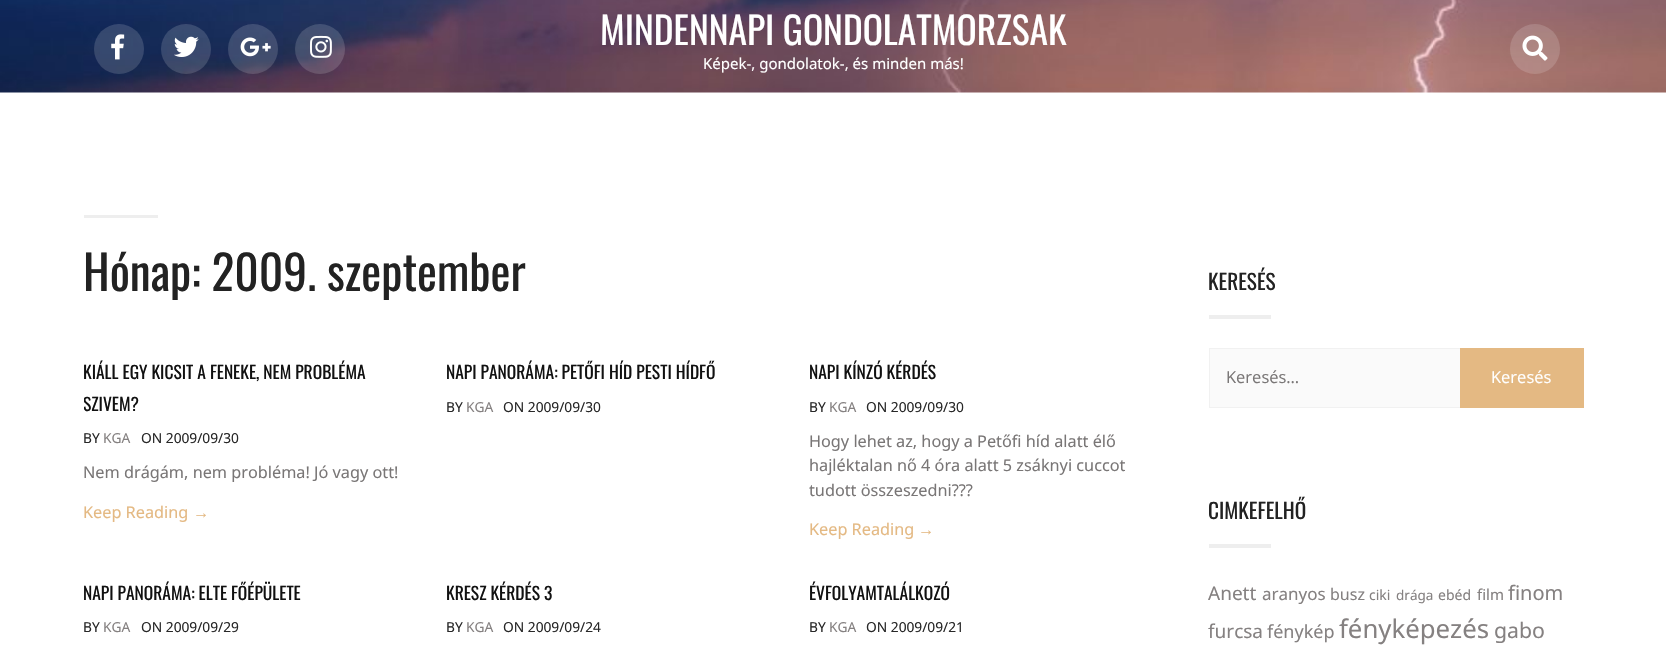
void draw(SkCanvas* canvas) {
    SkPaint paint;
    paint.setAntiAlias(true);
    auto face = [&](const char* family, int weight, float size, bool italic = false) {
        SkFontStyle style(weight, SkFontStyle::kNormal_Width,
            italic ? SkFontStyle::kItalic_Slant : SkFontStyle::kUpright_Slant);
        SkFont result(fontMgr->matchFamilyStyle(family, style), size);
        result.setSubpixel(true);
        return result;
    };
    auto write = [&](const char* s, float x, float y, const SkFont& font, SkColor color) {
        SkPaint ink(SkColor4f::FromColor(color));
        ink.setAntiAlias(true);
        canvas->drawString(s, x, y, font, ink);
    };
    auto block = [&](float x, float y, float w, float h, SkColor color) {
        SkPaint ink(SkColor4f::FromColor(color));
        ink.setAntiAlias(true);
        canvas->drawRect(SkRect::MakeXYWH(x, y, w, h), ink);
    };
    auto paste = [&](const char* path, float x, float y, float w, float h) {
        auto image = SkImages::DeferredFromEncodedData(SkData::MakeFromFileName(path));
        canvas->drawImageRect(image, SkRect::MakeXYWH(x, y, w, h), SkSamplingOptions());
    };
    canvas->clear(SK_ColorWHITE);
    paste("pic1.png", 0, 0, 1666, 93);
    paint.setColor(SkColorSetARGB(38, 255, 255, 255));
    canvas->drawCircle(119, 49, 25, paint);
    paste("pic2.png", 111, 34, 14, 26);
    canvas->drawCircle(186, 49, 25, paint);
    paste("pic3.png", 174, 36, 25, 21);
    canvas->drawCircle(253, 49, 25, paint);
    paste("pic4.png", 240, 37, 31, 20);
    canvas->drawCircle(320, 49, 25, paint);
    paste("pic5.png", 310, 35, 22, 23);
    canvas->save();
    canvas->clipRect(SkRect::MakeXYWH(84, 13, 1500, 67));
    auto kFont1 = face("Oswald", 400, 37.5f);
    write("MINDENNAPI GONDOLATMORZSÁK", 600, 45, kFont1, SK_ColorWHITE);
    canvas->restore();
    auto kFont2 = face("Noto Sans", 400, 15);
    write("Képek-, gondolatok-, és minden más!", 703, 69, kFont2, SK_ColorWHITE);
    canvas->drawCircle(1535, 49, 25, paint);
    paste("pic6.png", 1522, 35, 26, 26);
    block(84, 215, 74, 3, SkColorSetRGB(238, 238, 238));
    auto kFont3 = face("Oswald", 400, 47.5f);
    write("Hónap: 2009. szeptember", 83, 291, kFont3, SkColorSetRGB(34, 34, 34));
    auto kFont4 = face("Oswald", 400, 17.5f);
    write("KIÁLL EGY KICSIT A FENEKE, NEM PROBLÉMA", 83, 379, kFont4, SkColorSetRGB(17, 17, 17));
    canvas->save();
    canvas->clipRect(SkRect::MakeXYWH(84, 205, 1500, 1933));
    write("SZIVEM?", 83, 411, kFont4, SkColorSetRGB(17, 17, 17));
    canvas->restore();
    auto kFont5 = face("Noto Sans", 400, 13.75f);
    write("BY", 83, 443, kFont5, SkColorSetRGB(40, 40, 40));
    write("KGA", 103, 443, kFont5, SkColorSetRGB(133, 129, 129));
    write("ON 2009/09/30", 141, 443, kFont5, SkColorSetRGB(40, 40, 40));
    auto kFont6 = face("Noto Sans", 400, 16.25f);
    write("Nem drágám, nem probléma! Jó vagy ott!", 83, 478, kFont6, SkColorSetRGB(121, 118, 118));
    write("Keep Reading", 83, 518, kFont6, SkColorSetRGB(228, 185, 131));
    auto kFont7 = face("Liberation Serif", 400, 16.25f);
    write("→", 193, 518, kFont7, SkColorSetRGB(228, 185, 131));
    write("NAPI PANORÁMA: PETŐFI HÍD PESTI HÍDFŐ", 446, 379, kFont4, SkColorSetRGB(17, 17, 17));
    write("BY", 446, 412, kFont5, SkColorSetRGB(40, 40, 40));
    write("KGA", 466, 412, kFont5, SkColorSetRGB(133, 129, 129));
    write("ON 2009/09/30", 503, 412, kFont5, SkColorSetRGB(40, 40, 40));
    write("NAPI KÍNZÓ KÉRDÉS", 809, 379, kFont4, SkColorSetRGB(17, 17, 17));
    write("BY", 809, 412, kFont5, SkColorSetRGB(40, 40, 40));
    write("KGA", 829, 412, kFont5, SkColorSetRGB(133, 129, 129));
    write("ON 2009/09/30", 866, 412, kFont5, SkColorSetRGB(40, 40, 40));
    write("Hogy lehet az, hogy a Petőfi híd alatt élő", 809, 447, kFont6, SkColorSetRGB(121, 118, 118));
    write("hajléktalan nő 4 óra alatt 5 zsáknyi cuccot", 809, 471, kFont6, SkColorSetRGB(121, 118, 118));
    write("tudott összeszedni?\077?", 809, 496, kFont6, SkColorSetRGB(121, 118, 118));
    write("Keep Reading", 809, 535, kFont6, SkColorSetRGB(228, 185, 131));
    write("→", 918, 535, kFont7, SkColorSetRGB(228, 185, 131));
    write("NAPI PANORÁMA: ELTE FŐÉPÜLETE", 83, 600, kFont4, SkColorSetRGB(17, 17, 17));
    write("BY", 83, 632, kFont5, SkColorSetRGB(40, 40, 40));
    write("KGA", 103, 632, kFont5, SkColorSetRGB(133, 129, 129));
    write("ON 2009/09/29", 141, 632, kFont5, SkColorSetRGB(40, 40, 40));
    write("KRESZ KÉRDÉS 3", 446, 600, kFont4, SkColorSetRGB(17, 17, 17));
    write("BY", 446, 632, kFont5, SkColorSetRGB(40, 40, 40));
    write("KGA", 466, 632, kFont5, SkColorSetRGB(133, 129, 129));
    write("ON 2009/09/24", 503, 632, kFont5, SkColorSetRGB(40, 40, 40));
    write("ÉVFOLYAMTALÁLKOZÓ", 809, 600, kFont4, SkColorSetRGB(17, 17, 17));
    write("BY", 809, 632, kFont5, SkColorSetRGB(40, 40, 40));
    write("KGA", 829, 632, kFont5, SkColorSetRGB(133, 129, 129));
    write("ON 2009/09/21", 866, 632, kFont5, SkColorSetRGB(40, 40, 40));
    auto kFont8 = face("Oswald", 400, 21.25f);
    write("KERESÉS", 1208, 290, kFont8, SkColorSetRGB(34, 34, 34));
    block(1209, 315, 62, 4, SkColorSetRGB(238, 238, 238));
    block(1210, 349, 250, 58, SkColorSetRGB(250, 250, 250));
    paint.setStyle(SkPaint::kStroke_Style);
    paint.setStrokeWidth(1);
    paint.setColor(SkColorSetRGB(241, 241, 241));
    canvas->drawRect(SkRect::MakeXYWH(1209.5f, 348.5f, 374, 59), paint);
    auto kFont9 = face("Open Sans", 400, 16.5f);
    write("Keresés…", 1226, 383, kFont9, SkColorSetRGB(121, 118, 118));
    block(1460, 348, 124, 60, SkColorSetRGB(228, 185, 131));
    write("Keresés", 1491, 383, kFont9, SK_ColorWHITE);
    write("CIMKEFELHŐ", 1208, 519, kFont8, SkColorSetRGB(34, 34, 34));
    block(1209, 544, 62, 4, SkColorSetRGB(238, 238, 238));
    auto kFont10 = face("Noto Sans", 400, 19);
    write("Anett", 1208, 600, kFont10, SkColorSetRGB(133, 129, 129));
    auto kFont11 = face("Noto Sans", 400, 17);
    write("aranyos", 1262, 600, kFont11, SkColorSetRGB(133, 129, 129));
    auto kFont12 = face("Noto Sans", 400, 16);
    write("busz", 1330, 600, kFont12, SkColorSetRGB(133, 129, 129));
    auto kFont13 = face("Noto Sans", 400, 14);
    write("ciki", 1369, 600, kFont13, SkColorSetRGB(133, 129, 129));
    auto kFont14 = face("Noto Sans", 400, 13.5f);
    write("drága", 1396, 600, kFont14, SkColorSetRGB(133, 129, 129));
    write("ebéd", 1438, 600, kFont13, SkColorSetRGB(133, 129, 129));
    write("film", 1477, 600, kFont2, SkColorSetRGB(133, 129, 129));
    auto kFont15 = face("Noto Sans", 400, 20);
    write("finom", 1508, 600, kFont15, SkColorSetRGB(133, 129, 129));
    write("furcsa", 1208, 638, kFont10, SkColorSetRGB(133, 129, 129));
    auto kFont16 = face("Noto Sans", 400, 18);
    write("fénykép", 1267, 638, kFont16, SkColorSetRGB(133, 129, 129));
    auto kFont17 = face("Noto Sans", 400, 25.75f);
    write("fényképezés", 1339, 638, kFont17, SkColorSetRGB(133, 129, 129));
    auto kFont18 = face("Noto Sans", 400, 21.25f);
    write("gabo", 1494, 638, kFont18, SkColorSetRGB(133, 129, 129));
}
